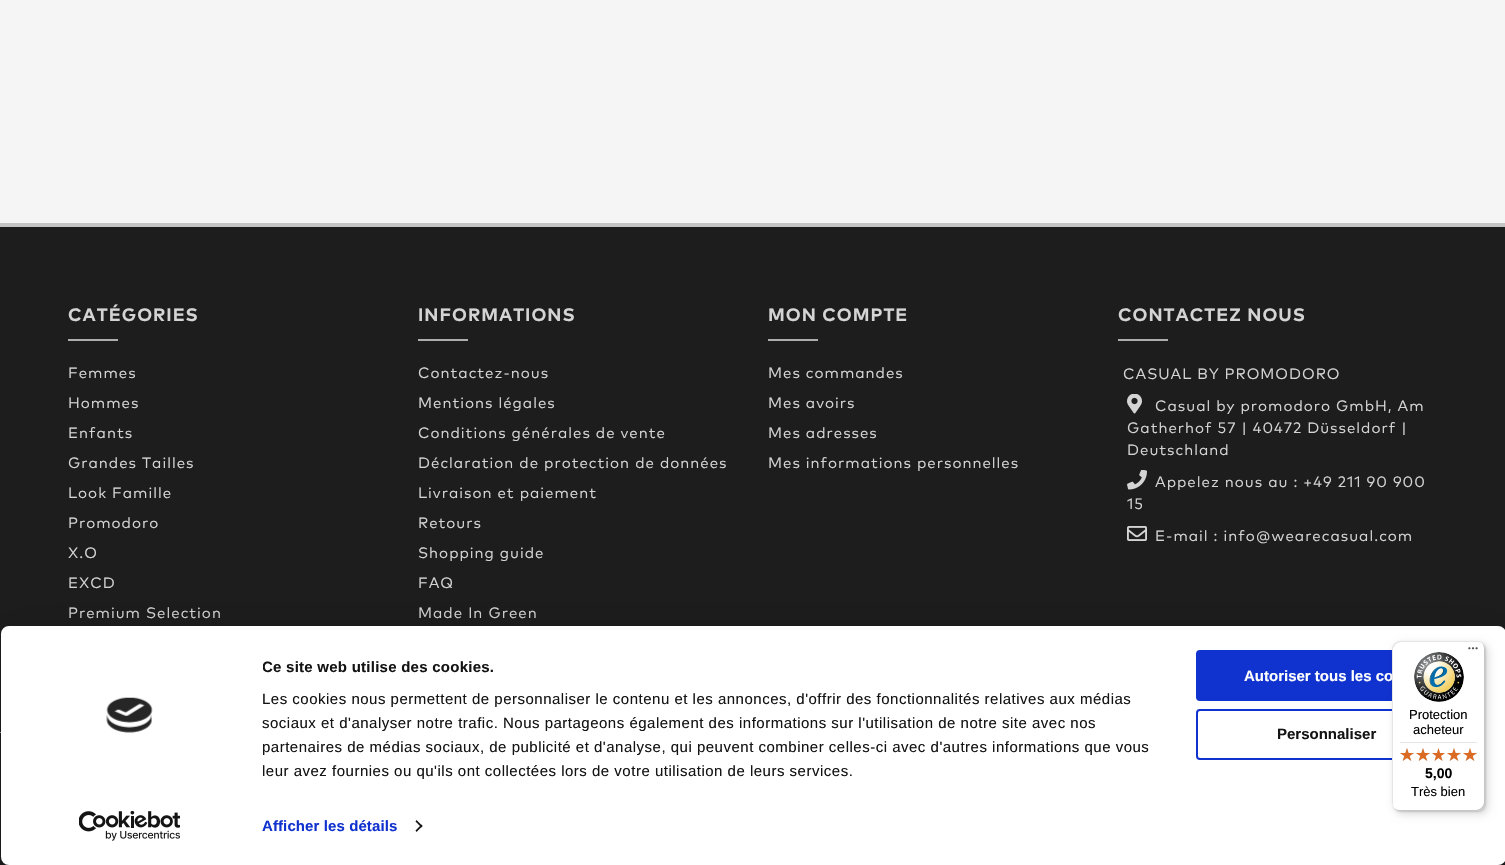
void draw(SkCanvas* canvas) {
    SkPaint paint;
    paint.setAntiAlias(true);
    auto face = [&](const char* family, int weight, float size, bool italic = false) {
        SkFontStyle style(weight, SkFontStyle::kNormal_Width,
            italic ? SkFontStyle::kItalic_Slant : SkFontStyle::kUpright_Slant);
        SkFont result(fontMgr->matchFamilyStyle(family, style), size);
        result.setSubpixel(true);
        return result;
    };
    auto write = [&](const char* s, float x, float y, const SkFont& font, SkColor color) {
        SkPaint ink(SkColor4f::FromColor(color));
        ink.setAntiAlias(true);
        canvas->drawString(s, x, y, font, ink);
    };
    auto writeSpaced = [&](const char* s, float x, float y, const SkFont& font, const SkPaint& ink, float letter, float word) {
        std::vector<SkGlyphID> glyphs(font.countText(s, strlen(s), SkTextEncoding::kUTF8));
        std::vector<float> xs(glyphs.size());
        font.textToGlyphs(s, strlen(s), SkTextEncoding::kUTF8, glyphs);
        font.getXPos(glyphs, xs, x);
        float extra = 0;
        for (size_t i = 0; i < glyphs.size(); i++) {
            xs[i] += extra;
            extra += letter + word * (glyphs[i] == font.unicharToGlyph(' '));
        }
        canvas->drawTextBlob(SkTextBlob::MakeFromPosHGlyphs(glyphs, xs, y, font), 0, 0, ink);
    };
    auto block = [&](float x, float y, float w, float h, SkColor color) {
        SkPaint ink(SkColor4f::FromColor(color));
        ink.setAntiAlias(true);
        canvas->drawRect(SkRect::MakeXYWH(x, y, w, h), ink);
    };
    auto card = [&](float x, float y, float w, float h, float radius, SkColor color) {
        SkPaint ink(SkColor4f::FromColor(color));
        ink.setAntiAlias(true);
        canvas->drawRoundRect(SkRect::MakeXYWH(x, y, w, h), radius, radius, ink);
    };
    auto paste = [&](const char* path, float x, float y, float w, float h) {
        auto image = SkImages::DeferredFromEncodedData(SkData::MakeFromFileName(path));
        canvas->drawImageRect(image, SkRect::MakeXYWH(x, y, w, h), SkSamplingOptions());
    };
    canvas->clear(SkColorSetRGB(29, 29, 29));
    block(0, 223, 1505, 4, SkColorSetRGB(196, 196, 196));
    block(0, 0, 1505, 223, SkColorSetRGB(245, 245, 245));
    auto kFont1 = face("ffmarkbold", 700, 18);
    paint.setColor(SkColorSetRGB(212, 212, 212));
    writeSpaced("CATÉGORIES", 68, 321, kFont1, paint, 1, 0);
    block(68, 339, 50, 2, SkColorSetRGB(174, 173, 173));
    auto kFont2 = face("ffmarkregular", 400, 15);
    writeSpaced("Femmes", 68, 378, kFont2, paint, 1, 0);
    writeSpaced("Hommes", 68, 408, kFont2, paint, 1, 0);
    writeSpaced("Enfants", 68, 438, kFont2, paint, 1, 0);
    writeSpaced("Grandes Tailles", 68, 468, kFont2, paint, 1, 0);
    writeSpaced("Look Famille", 68, 498, kFont2, paint, 1, 0);
    writeSpaced("Promodoro", 68, 528, kFont2, paint, 1, 0);
    writeSpaced("X.O", 68, 558, kFont2, paint, 1, 0);
    writeSpaced("EXCD", 68, 588, kFont2, paint, 1, 0);
    writeSpaced("Premium Selection", 68, 618, kFont2, paint, 1, 0);
    writeSpaced("INFORMATIONS", 418, 321, kFont1, paint, 1, 0);
    block(418, 339, 50, 2, SkColorSetRGB(174, 173, 173));
    writeSpaced("Contactez-nous", 418, 378, kFont2, paint, 1, 0);
    writeSpaced("Mentions légales", 418, 408, kFont2, paint, 1, 0);
    writeSpaced("Conditions générales de vente", 418, 438, kFont2, paint, 1, 0);
    writeSpaced("Déclaration de protection de données", 418, 468, kFont2, paint, 1, 0);
    writeSpaced("Livraison et paiement", 418, 498, kFont2, paint, 1, 0);
    writeSpaced("Retours", 418, 528, kFont2, paint, 1, 0);
    writeSpaced("Shopping guide", 418, 558, kFont2, paint, 1, 0);
    writeSpaced("FAQ", 418, 588, kFont2, paint, 1, 0);
    writeSpaced("Made In Green", 418, 618, kFont2, paint, 1, 0);
    writeSpaced("MON COMPTE", 768, 321, kFont1, paint, 1, 0);
    block(768, 339, 50, 2, SkColorSetRGB(174, 173, 173));
    writeSpaced("Mes commandes", 768, 378, kFont2, paint, 1, 0);
    writeSpaced("Mes avoirs", 768, 408, kFont2, paint, 1, 0);
    writeSpaced("Mes adresses", 768, 438, kFont2, paint, 1, 0);
    writeSpaced("Mes informations personnelles", 768, 468, kFont2, paint, 1, 0);
    writeSpaced("CONTACTEZ NOUS", 1118, 321, kFont1, paint, 1, 0);
    block(1118, 339, 50, 2, SkColorSetRGB(174, 173, 173));
    writeSpaced("CASUAL BY PROMODORO", 1123, 379, kFont2, paint, 1, 0);
    paste("pic1.png", 1127, 394, 15, 20);
    writeSpaced("Casual by promodoro GmbH, Am", 1155, 411, kFont2, paint, 1, 0);
    writeSpaced("Gatherhof 57 | 40472 Düsseldorf |", 1127, 433, kFont2, paint, 1, 0);
    writeSpaced("Deutschland", 1127, 455, kFont2, paint, 1, 0);
    paste("pic2.png", 1127, 470, 20, 20);
    writeSpaced("Appelez nous au : +49 211 90 900", 1155, 487, kFont2, paint, 1, 0);
    writeSpaced("15", 1127, 509, kFont2, paint, 1, 0);
    paste("pic3.png", 1127, 526, 20, 15);
    writeSpaced("E-mail : info@wearecasual.com", 1155, 541, kFont2, paint, 1, 0);
    block(0, 732, 1, 1, SkColorSetRGB(174, 173, 173));
    paint.setColor(SkColorSetARGB(77, 0, 0, 0));
    paint.setMaskFilter(SkMaskFilter::MakeBlur(kNormal_SkBlurStyle, 35));
    canvas->drawRoundRect(SkRect::MakeXYWH(1, 656, 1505, 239), 8, 8, paint);
    paint.setMaskFilter(nullptr);
    card(1, 626, 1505, 239, 8, SK_ColorWHITE);
    paste("pic4.png", 106, 697, 47, 36);
    paste("pic5.png", 79, 811, 101, 30);
    canvas->save();
    canvas->clipRect(SkRect::MakeXYWH(263, 656, 927, 127));
    auto kFont3 = face("Liberation Sans", 700, 15);
    paint.setColor(SkColorSetRGB(20, 20, 20));
    writeSpaced("Ce site web utilise des cookies.", 262, 672, kFont3, paint, 0.25f, 0);
    canvas->restore();
    auto kFont4 = face("Liberation Sans", 400, 15);
    writeSpaced("Les cookies nous permettent de personnaliser le contenu et les annonces, d'offrir des fonctionnalités relatives aux médias", 262, 704, kFont4, paint, 0.5f, 0);
    writeSpaced("sociaux et d'analyser notre trafic. Nous partageons également des informations sur l'utilisation de notre site avec nos", 262, 728, kFont4, paint, 0.5f, 0);
    writeSpaced("partenaires de médias sociaux, de publicité et d'analyse, qui peuvent combiner celles-ci avec d'autres informations que vous", 262, 752, kFont4, paint, 0.5f, 0);
    writeSpaced("leur avez fournies ou qu'ils ont collectées lors de votre utilisation de leurs services.", 262, 776, kFont4, paint, 0.5f, 0);
    paint.setColor(SkColorSetRGB(16, 50, 207));
    writeSpaced("Afficher les détails", 262, 831, kFont3, paint, 0.1f, 0);
    paint.setColor(SkColorSetRGB(20, 20, 20));
    canvas->drawPath(SkPathBuilder().moveTo(416.5f, 820).lineTo(422.5f, 826).lineTo(421.5f, 827.5f).lineTo(415.5f, 821.5f).close().detach(), paint);
    canvas->drawPath(SkPathBuilder().moveTo(421.5f, 824.5f).lineTo(422.5f, 826).lineTo(416.5f, 832).lineTo(415.5f, 830.5f).close().detach(), paint);
    paint.setColor(SkColorSetRGB(16, 50, 207));
    canvas->drawRoundRect(SkRect::MakeXYWH(1197, 651, 284, 49), 3, 3, paint);
    paint.setStyle(SkPaint::kStroke_Style);
    paint.setStrokeWidth(2);
    canvas->drawRoundRect(SkRect::MakeXYWH(1197, 651, 284, 49), 3, 3, paint);
    write("Autoriser tous les co", 1244, 681, kFont3, SK_ColorWHITE);
    canvas->drawRoundRect(SkRect::MakeXYWH(1197, 710, 284, 49), 3, 3, paint);
    write("Personnaliser", 1277, 739, kFont3, SkColorSetRGB(20, 20, 20));
    paint.setStyle(SkPaint::kFill_Style);
    paint.setColor(SkColorSetARGB(38, 0, 0, 0));
    paint.setMaskFilter(SkMaskFilter::MakeBlur(kNormal_SkBlurStyle, 4));
    canvas->drawRoundRect(SkRect::MakeXYWH(1395, 644, 93, 170), 8, 8, paint);
    paint.setMaskFilter(nullptr);
    paint.setMaskFilter(SkMaskFilter::MakeBlur(kNormal_SkBlurStyle, 1));
    canvas->drawRoundRect(SkRect::MakeXYWH(1393, 642, 93, 170), 8, 8, paint);
    paint.setMaskFilter(nullptr);
    card(1392, 641, 93, 170, 8, SK_ColorWHITE);
    paint.setColor(SkColorSetRGB(229, 229, 229));
    canvas->drawPath(SkPathBuilder().moveTo(1401, 642).lineTo(1478, 642).cubicTo(1480, 642, 1482, 643, 1484, 645).cubicTo(1482, 643, 1480, 641, 1477, 641).lineTo(1400, 641).cubicTo(1396, 641, 1392, 645, 1392, 649).lineTo(1392, 803).cubicTo(1392, 806, 1394, 808, 1396, 810).cubicTo(1394, 808, 1393, 806, 1393, 804).lineTo(1393, 650).cubicTo(1393, 646, 1397, 642, 1401, 642).close().detach(), paint);
    paint.setColor(SkColorSetRGB(204, 204, 204));
    canvas->drawPath(SkPathBuilder().moveTo(1393, 807).cubicTo(1395, 809, 1397, 811, 1400, 811).lineTo(1477, 811).cubicTo(1481, 811, 1485, 807, 1485, 803).lineTo(1485, 649).cubicTo(1485, 646, 1483, 644, 1481, 642).cubicTo(1483, 644, 1484, 646, 1484, 648).lineTo(1484, 802).cubicTo(1484, 806, 1480, 810, 1476, 810).lineTo(1399, 810).cubicTo(1397, 810, 1395, 809, 1393, 807).close().detach(), paint);
    paint.setColor(SkColorSetARGB(51, 50, 50, 50));
    canvas->drawPath(SkPathBuilder().moveTo(1394, 808).cubicTo(1395, 810, 1398, 811, 1400, 811).lineTo(1477, 811).cubicTo(1481, 811, 1485, 807, 1485, 803).lineTo(1485, 649).cubicTo(1485, 647, 1484, 644, 1482, 643).cubicTo(1483, 644, 1484, 646, 1484, 648).lineTo(1484, 802).cubicTo(1484, 807, 1481, 810, 1476, 810).lineTo(1399, 810).cubicTo(1397, 810, 1395, 809, 1394, 808).close().detach(), paint);
    paint.setColor(SkColorSetARGB(77, 255, 255, 255));
    canvas->drawPath(SkPathBuilder().moveTo(1392, 802).lineTo(1392, 803).cubicTo(1392, 807, 1396, 811, 1400, 811).lineTo(1477, 811).cubicTo(1481, 811, 1485, 807, 1485, 803).lineTo(1485, 649).cubicTo(1485, 647, 1484, 644, 1482, 643).cubicTo(1483, 644, 1484, 646, 1484, 648).lineTo(1484, 802).cubicTo(1484, 807, 1481, 810, 1476, 810).lineTo(1400, 810).cubicTo(1395, 810, 1392, 807, 1392, 802).close().detach(), paint);
    paste("pic6.png", 1468, 647, 10, 3);
    paste("pic7.png", 1414, 652, 50, 50);
    auto kFont5 = face("Liberation Sans", 400, 13);
    write("Protection", 1409, 719, kFont5, SK_ColorBLACK);
    write("acheteur", 1413, 734, kFont5, SK_ColorBLACK);
    block(1400, 742, 77, 1, SkColorSetRGB(229, 229, 229));
    paste("pic8.png", 1400, 748, 14, 13);
    paste("pic8.png", 1416, 748, 14, 13);
    paste("pic9.png", 1432, 748, 13, 13);
    paste("pic8.png", 1447, 748, 14, 13);
    paste("pic8.png", 1463, 748, 14, 13);
    paste("pic10.png", 1400, 748, 14, 13);
    paste("pic10.png", 1416, 748, 14, 13);
    paste("pic11.png", 1432, 748, 13, 13);
    paste("pic10.png", 1447, 748, 14, 13);
    paste("pic10.png", 1463, 748, 14, 13);
    auto kFont6 = face("Liberation Sans", 700, 14);
    write("5,00", 1425, 778, kFont6, SK_ColorBLACK);
    write("Très bien", 1411, 796, kFont5, SK_ColorBLACK);
}
